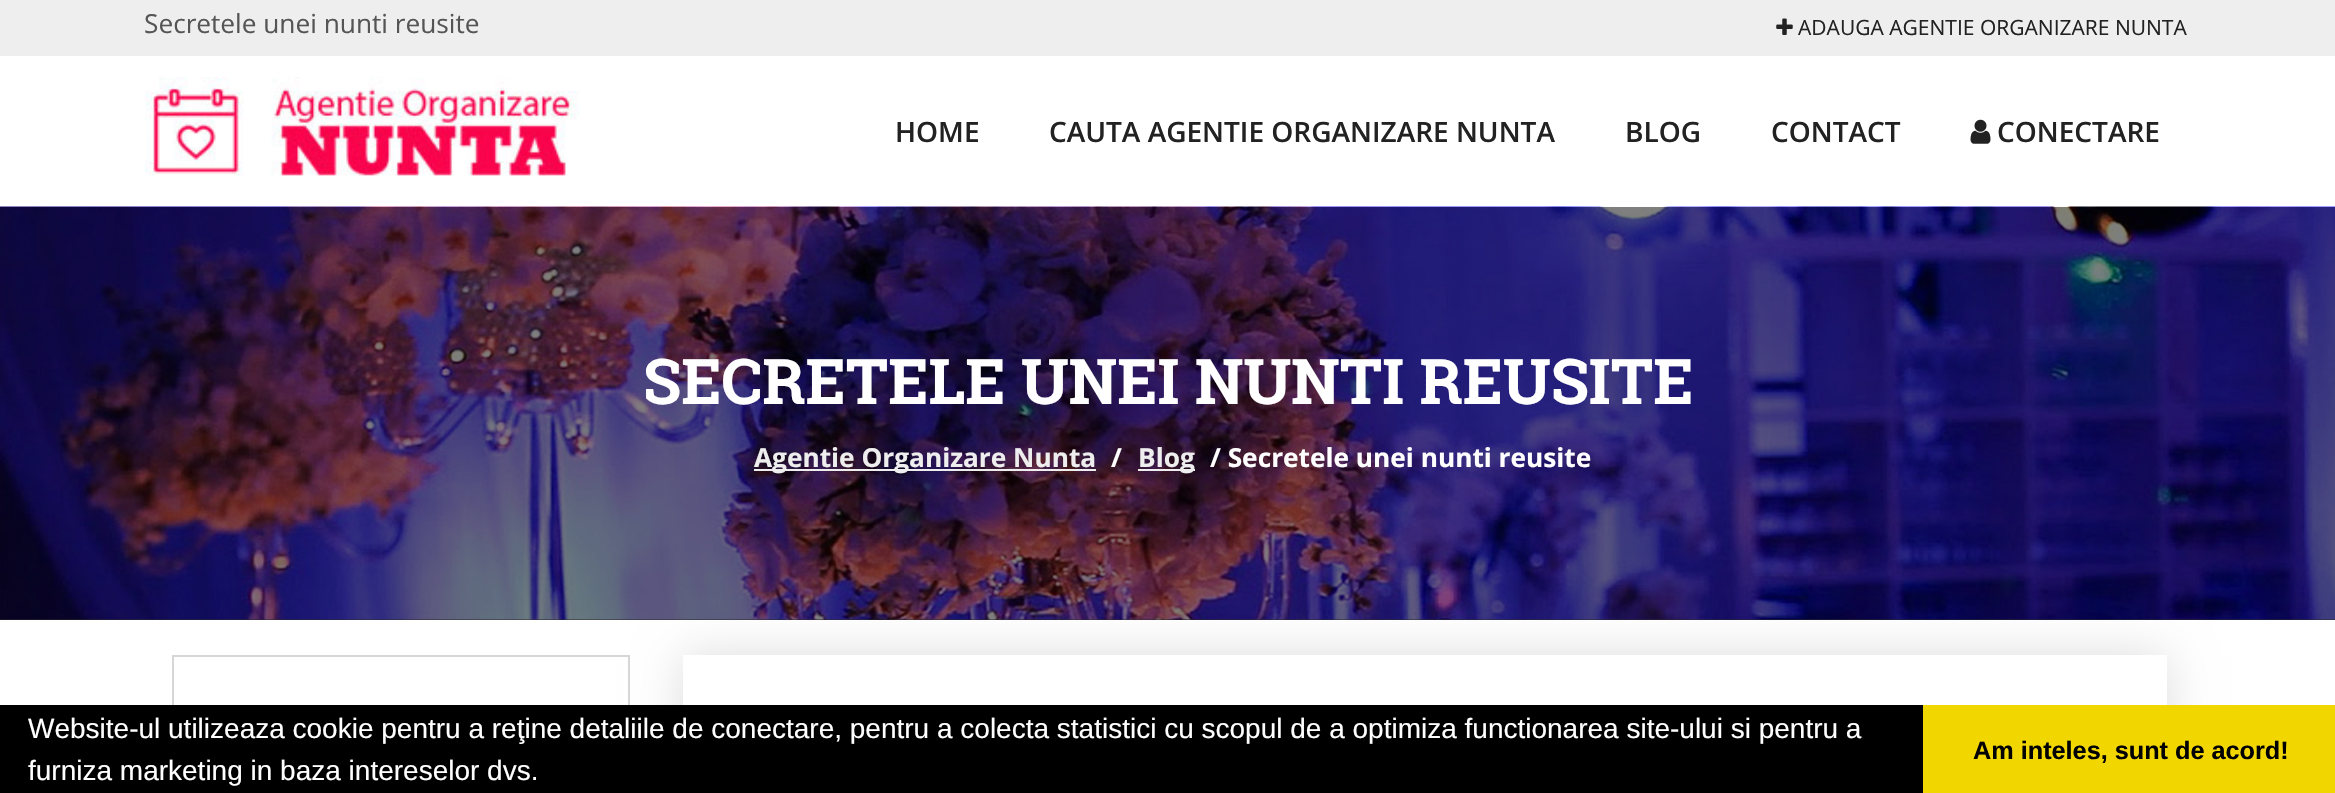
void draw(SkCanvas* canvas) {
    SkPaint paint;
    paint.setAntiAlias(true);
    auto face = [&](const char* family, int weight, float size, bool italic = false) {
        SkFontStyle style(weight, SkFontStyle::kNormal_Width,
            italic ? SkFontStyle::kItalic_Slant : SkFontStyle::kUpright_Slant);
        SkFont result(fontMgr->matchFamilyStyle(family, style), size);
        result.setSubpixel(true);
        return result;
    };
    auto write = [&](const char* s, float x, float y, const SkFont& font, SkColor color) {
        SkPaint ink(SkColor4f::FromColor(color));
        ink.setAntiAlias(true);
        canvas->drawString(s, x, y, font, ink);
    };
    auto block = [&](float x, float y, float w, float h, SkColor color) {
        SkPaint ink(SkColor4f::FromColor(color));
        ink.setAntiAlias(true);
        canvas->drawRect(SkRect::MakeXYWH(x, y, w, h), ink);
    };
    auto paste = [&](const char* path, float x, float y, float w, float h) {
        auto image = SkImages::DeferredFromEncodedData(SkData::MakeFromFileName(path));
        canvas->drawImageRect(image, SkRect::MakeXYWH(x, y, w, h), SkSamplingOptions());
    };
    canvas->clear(SK_ColorWHITE);
    block(0, 0, 2335, 56, SkColorSetRGB(238, 238, 238));
    auto kFont1 = face("Open Sans", 400, 26.25f);
    write("Secretele unei nunti reusite", 144, 33, kFont1, SkColorSetRGB(85, 85, 85));
    paste("pic1.png", 1776, 18, 17, 17);
    auto kFont2 = face("Open Sans", 400, 21);
    write("ADAUGA AGENTIE ORGANIZARE NUNTA", 1798, 35, kFont2, SkColorSetRGB(34, 34, 34));
    paste("pic2.png", 145, 77, 435, 99);
    auto kFont3 = face("Open Sans", 600, 28);
    write("HOME", 895, 142, kFont3, SkColorSetRGB(34, 34, 34));
    write("CAUTA AGENTIE ORGANIZARE NUNTA", 1049, 142, kFont3, SkColorSetRGB(34, 34, 34));
    write("BLOG", 1625, 142, kFont3, SkColorSetRGB(34, 34, 34));
    write("CONTACT", 1771, 142, kFont3, SkColorSetRGB(34, 34, 34));
    paste("pic3.png", 1970, 119, 21, 25);
    write("CONECTARE", 1997, 142, kFont3, SkColorSetRGB(34, 34, 34));
    paint.setStyle(SkPaint::kStroke_Style);
    paint.setStrokeWidth(2);
    paint.setColor(SkColorSetRGB(214, 214, 214));
    canvas->drawRect(SkRect::MakeXYWH(173, 656, 456, 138), paint);
    canvas->save();
    canvas->clipPath(SkPathBuilder(SkPathFillType::kEvenOdd).moveTo(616, 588).lineTo(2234, 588).lineTo(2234, 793).lineTo(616, 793).close().moveTo(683, 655).lineTo(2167, 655).lineTo(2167, 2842).lineTo(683, 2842).close().detach(), true);
    paint.setStyle(SkPaint::kFill_Style);
    paint.setColor(SkColorSetRGB(221, 221, 221));
    paint.setMaskFilter(SkMaskFilter::MakeBlur(kNormal_SkBlurStyle, 22));
    canvas->drawRect(SkRect::MakeXYWH(683, 655, 1484, 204), paint);
    paint.setMaskFilter(nullptr);
    canvas->restore();
    block(0, 619, 2335, 1, SkColorSetRGB(85, 85, 85));
    paste("pic4.png", 0, 206, 2335, 414);
    block(0, 207, 2335, 413, SkColorSetARGB(128, 0, 0, 0));
    auto kFont4 = face("Roboto Slab", 700, 63);
    write("SECRETELE UNEI NUNTI REUSITE", 643, 404, kFont4, SK_ColorWHITE);
    block(754, 469, 342, 2, SkColorSetRGB(238, 238, 238));
    auto kFont5 = face("Open Sans", 700, 26.25f);
    write("Agentie Organizare Nunta", 754, 467, kFont5, SkColorSetRGB(238, 238, 238));
    write("/", 1111, 467, kFont5, SK_ColorWHITE);
    block(1138, 469, 57, 2, SkColorSetRGB(238, 238, 238));
    write("Blog", 1138, 467, kFont5, SkColorSetRGB(238, 238, 238));
    write("/ Secretele unei nunti reusite", 1210, 467, kFont5, SK_ColorWHITE);
    block(0, 705, 1923, 88, SK_ColorBLACK);
    auto kFont6 = face("Liberation Sans", 400, 28);
    write("Website-ul utilizeaza cookie pentru a reţine detaliile de conectare, pentru a colecta statistici cu scopul de a optimiza functionarea site-ului si pentru a", 28, 738, kFont6, SK_ColorWHITE);
    write("furniza marketing in baza intereselor dvs.", 28, 780, kFont6, SK_ColorWHITE);
    block(1923, 705, 412, 88, SkColorSetRGB(241, 214, 0));
    auto kFont7 = face("Liberation Sans", 700, 25.25f);
    write("Am inteles, sunt de acord!", 1973, 759, kFont7, SK_ColorBLACK);
}
